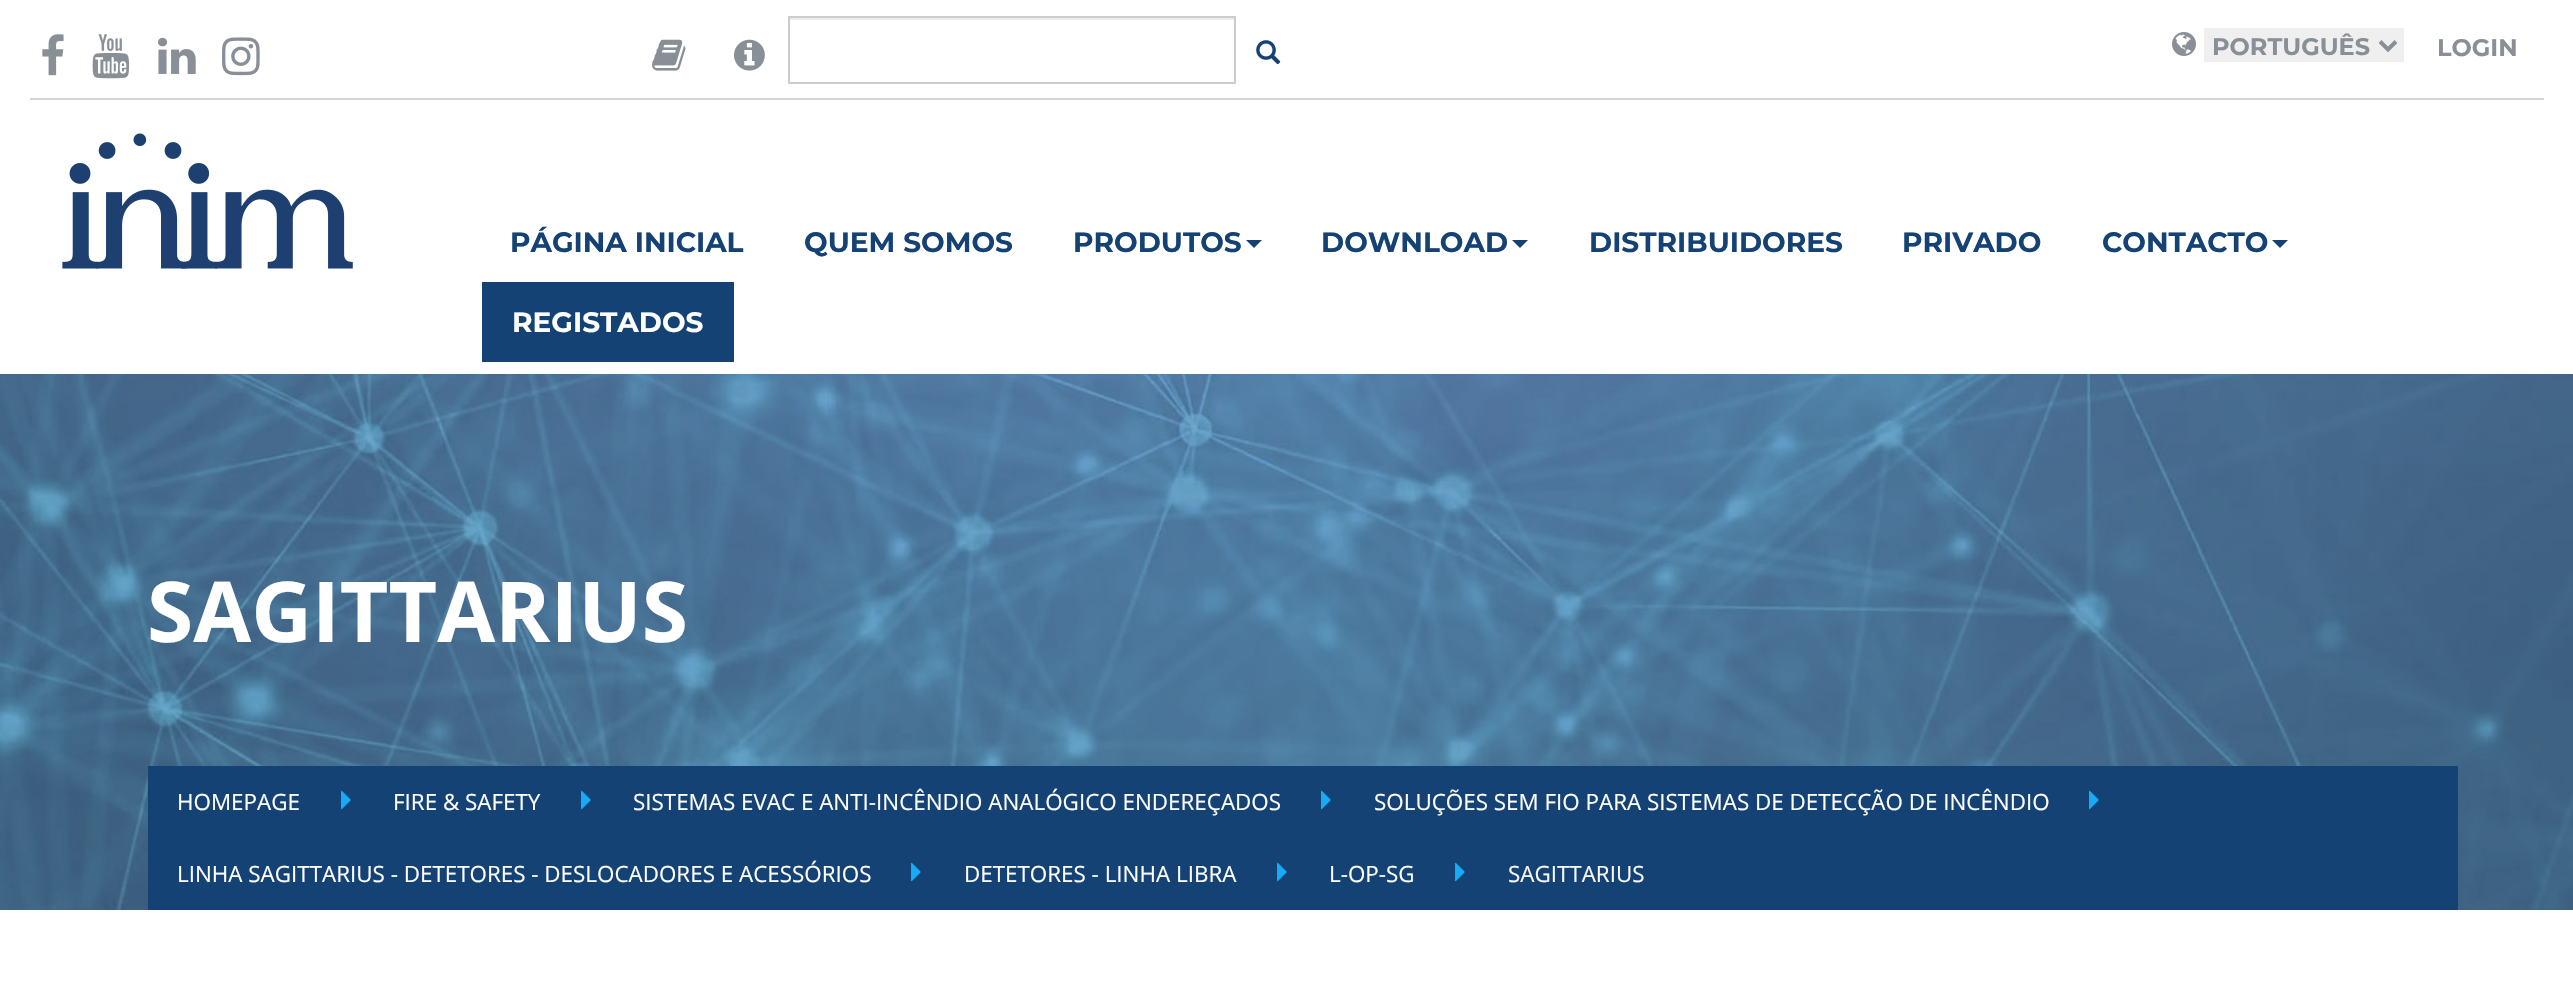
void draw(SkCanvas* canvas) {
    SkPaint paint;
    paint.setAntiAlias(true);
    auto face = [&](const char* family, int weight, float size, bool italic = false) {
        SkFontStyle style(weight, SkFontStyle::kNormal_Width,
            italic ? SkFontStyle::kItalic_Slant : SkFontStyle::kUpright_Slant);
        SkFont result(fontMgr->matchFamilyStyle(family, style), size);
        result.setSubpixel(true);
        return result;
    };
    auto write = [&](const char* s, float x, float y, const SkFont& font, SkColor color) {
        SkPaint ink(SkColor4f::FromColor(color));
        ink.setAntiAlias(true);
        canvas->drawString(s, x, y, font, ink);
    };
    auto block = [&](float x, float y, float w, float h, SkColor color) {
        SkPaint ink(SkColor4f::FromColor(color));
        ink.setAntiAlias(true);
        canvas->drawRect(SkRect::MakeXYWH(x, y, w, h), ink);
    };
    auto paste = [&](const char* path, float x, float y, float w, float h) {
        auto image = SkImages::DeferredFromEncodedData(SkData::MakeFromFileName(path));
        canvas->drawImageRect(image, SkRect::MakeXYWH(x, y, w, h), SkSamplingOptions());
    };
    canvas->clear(SK_ColorWHITE);
    block(30, 98, 2514, 2, SkColorSetRGB(212, 212, 212));
    paste("pic1.png", 42, 34, 22, 42);
    paste("pic2.png", 92, 34, 38, 45);
    paste("pic3.png", 158, 37, 38, 37);
    paste("pic4.png", 222, 37, 38, 39);
    paste("pic5.png", 652, 39, 34, 32);
    paste("pic6.png", 734, 39, 31, 32);
    block(790, 18, 444, 2, SkColorSetRGB(236, 236, 236));
    paint.setStyle(SkPaint::kStroke_Style);
    paint.setStrokeWidth(2);
    paint.setColor(SkColorSetRGB(204, 204, 204));
    canvas->drawRect(SkRect::MakeXYWH(789, 17, 446, 66), paint);
    paste("pic7.png", 1256, 40, 25, 25);
    paste("pic8.png", 2172, 32, 24, 24);
    block(2204, 28, 200, 34, SkColorSetRGB(239, 239, 239));
    paint.setStrokeWidth(4);
    paint.setColor(SkColorSetRGB(136, 143, 150));
    canvas->drawPath(SkPathBuilder().moveTo(2380, 41.5f).lineTo(2388, 49.5f).lineTo(2396, 41.5f).detach(), paint);
    auto kFont1 = face("Montserrat", 700, 24);
    write("PORTUGUÊS", 2212, 55, kFont1, SkColorSetRGB(136, 143, 150));
    write("LOGIN", 2437, 56, kFont1, SkColorSetRGB(136, 143, 150));
    paste("pic9.png", 62, 133, 291, 136);
    auto kFont2 = face("Montserrat", 700, 28);
    write("PÁGINA INICIAL", 510, 252, kFont2, SkColorSetRGB(21, 66, 117));
    write("QUEM SOMOS", 804, 252, kFont2, SkColorSetRGB(21, 66, 117));
    write("PRODUTOS", 1073, 252, kFont2, SkColorSetRGB(21, 66, 117));
    paint.setStyle(SkPaint::kFill_Style);
    paint.setColor(SkColorSetRGB(21, 66, 117));
    canvas->drawPath(SkPathBuilder().moveTo(1246, 240).lineTo(1262, 240).lineTo(1254, 248).close().detach(), paint);
    write("DOWNLOAD", 1321, 252, kFont2, SkColorSetRGB(21, 66, 117));
    canvas->drawPath(SkPathBuilder().moveTo(1512, 240).lineTo(1528, 240).lineTo(1520, 248).close().detach(), paint);
    write("DISTRIBUIDORES", 1589, 252, kFont2, SkColorSetRGB(21, 66, 117));
    write("PRIVADO", 1902, 252, kFont2, SkColorSetRGB(21, 66, 117));
    write("CONTACTO", 2102, 252, kFont2, SkColorSetRGB(21, 66, 117));
    canvas->drawPath(SkPathBuilder().moveTo(2272, 240).lineTo(2288, 240).lineTo(2280, 248).close().detach(), paint);
    block(482, 282, 252, 80, SkColorSetRGB(21, 66, 117));
    write("REGISTADOS", 512, 332, kFont2, SK_ColorWHITE);
    paste("pic10.png", 0, 374, 2573, 536);
    auto kFont3 = face("Open Sans", 700, 84);
    write("SAGITTARIUS", 147, 642, kFont3, SK_ColorWHITE);
    block(148, 766, 2310, 144, SkColorSetRGB(21, 66, 117));
    auto kFont4 = face("Open Sans", 400, 22.4f);
    write("HOMEPAGE", 177, 810, kFont4, SK_ColorWHITE);
    paste("pic11.png", 341, 790, 10, 20);
    write("FIRE & SAFETY", 393, 810, kFont4, SK_ColorWHITE);
    paste("pic11.png", 581, 790, 10, 20);
    write("SISTEMAS EVAC E ANTI-INCÊNDIO ANALÓGICO ENDEREÇADOS", 633, 810, kFont4, SK_ColorWHITE);
    paste("pic11.png", 1321, 790, 10, 20);
    write("SOLUÇÕES SEM FIO PARA SISTEMAS DE DETECÇÃO DE INCÊNDIO", 1374, 810, kFont4, SK_ColorWHITE);
    paste("pic11.png", 2089, 790, 10, 20);
    write("LINHA SAGITTARIUS - DETETORES - DESLOCADORES E ACESSÓRIOS", 177, 882, kFont4, SK_ColorWHITE);
    paste("pic11.png", 911, 862, 10, 20);
    write("DETETORES - LINHA LIBRA", 964, 882, kFont4, SK_ColorWHITE);
    paste("pic11.png", 1277, 862, 10, 20);
    write("L-OP-SG", 1329, 882, kFont4, SK_ColorWHITE);
    paste("pic11.png", 1455, 862, 10, 20);
    write("SAGITTARIUS", 1508, 882, kFont4, SkColorSetRGB(248, 248, 248));
}
